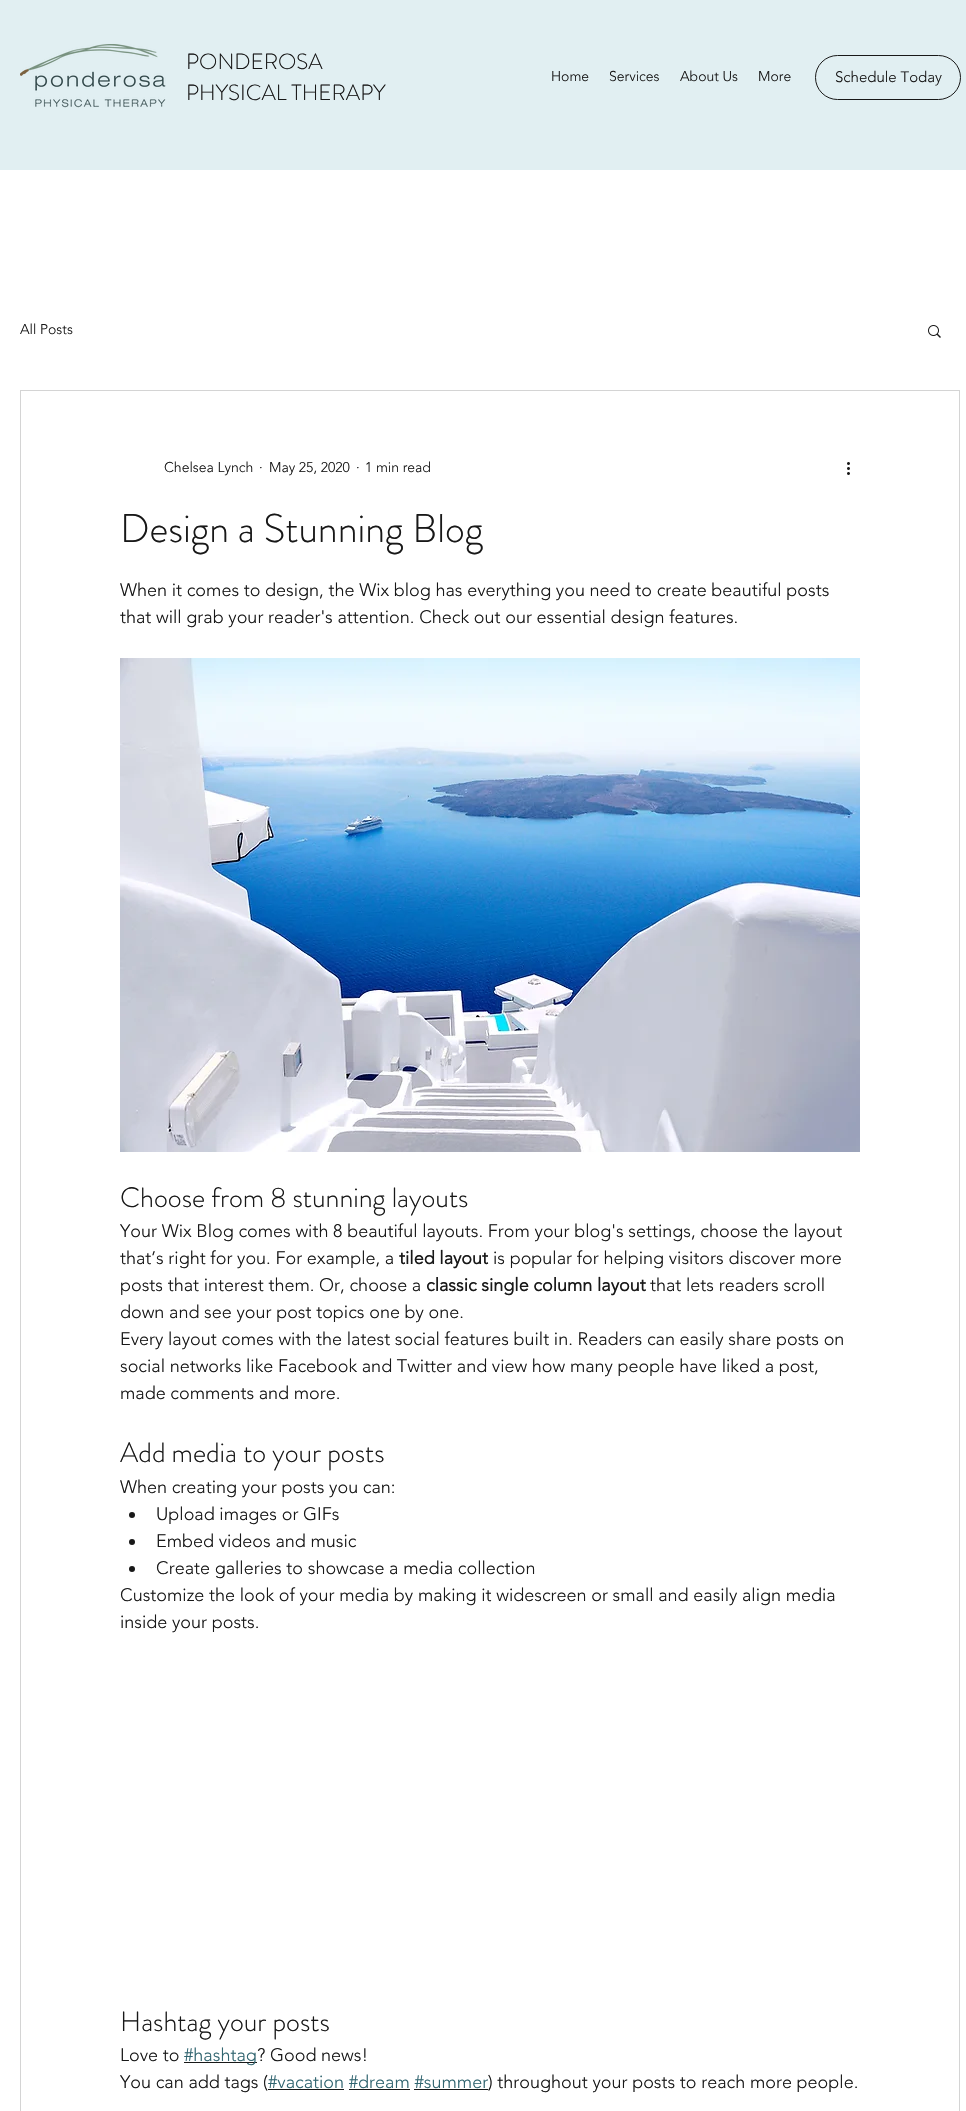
void draw(SkCanvas* canvas) {
    SkPaint paint;
    paint.setAntiAlias(true);
    auto face = [&](const char* family, int weight, float size, bool italic = false) {
        SkFontStyle style(weight, SkFontStyle::kNormal_Width,
            italic ? SkFontStyle::kItalic_Slant : SkFontStyle::kUpright_Slant);
        SkFont result(fontMgr->matchFamilyStyle(family, style), size);
        result.setSubpixel(true);
        return result;
    };
    auto write = [&](const char* s, float x, float y, const SkFont& font, SkColor color) {
        SkPaint ink(SkColor4f::FromColor(color));
        ink.setAntiAlias(true);
        canvas->drawString(s, x, y, font, ink);
    };
    auto block = [&](float x, float y, float w, float h, SkColor color) {
        SkPaint ink(SkColor4f::FromColor(color));
        ink.setAntiAlias(true);
        canvas->drawRect(SkRect::MakeXYWH(x, y, w, h), ink);
    };
    auto paste = [&](const char* path, float x, float y, float w, float h) {
        auto image = SkImages::DeferredFromEncodedData(SkData::MakeFromFileName(path));
        canvas->drawImageRect(image, SkRect::MakeXYWH(x, y, w, h), SkSamplingOptions());
    };
    canvas->clear(SK_ColorWHITE);
    block(0, 0, 966, 170, SkColorSetRGB(225, 239, 242));
    paste("pic1.png", 20, 44, 146, 64);
    auto kFont1 = face("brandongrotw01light", 300, 22);
    write("PONDEROSA", 186, 69, kFont1, SkColorSetRGB(24, 24, 24));
    write("PHYSICAL THERAPY", 186, 100, kFont1, SkColorSetRGB(24, 24, 24));
    auto kFont2 = face("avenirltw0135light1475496", 300, 14);
    write("Home", 551, 81, kFont2, SkColorSetRGB(24, 24, 24));
    write("Services", 609, 81, kFont2, SkColorSetRGB(24, 24, 24));
    write("About Us", 680, 81, kFont2, SkColorSetRGB(24, 24, 24));
    write("More", 758, 81, kFont2, SkColorSetRGB(24, 24, 24));
    paint.setStyle(SkPaint::kStroke_Style);
    paint.setStrokeWidth(1);
    paint.setColor(SkColorSetRGB(24, 24, 24));
    canvas->drawRoundRect(SkRect::MakeXYWH(815.5f, 55.5f, 145, 44), 22, 22, paint);
    auto kFont3 = face("avenirltw0135light1475496", 300, 15);
    write("Schedule Today", 835, 82, kFont3, SkColorSetRGB(24, 24, 24));
    write("All Posts", 20, 334, kFont2, SkColorSetRGB(24, 24, 24));
    paste("pic2.png", 928, 325, 13, 13);
    paint.setColor(SkColorSetRGB(212, 212, 212));
    canvas->drawRect(SkRect::MakeXYWH(20.5f, 390.5f, 939, 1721), paint);
    write("Chelsea Lynch", 164, 472, kFont2, SkColorSetRGB(24, 24, 24));
    write("·", 259, 472, kFont2, SkColorSetRGB(24, 24, 24));
    write("May 25, 2020", 269, 472, kFont2, SkColorSetRGB(24, 24, 24));
    write("·", 356, 472, kFont2, SkColorSetRGB(24, 24, 24));
    write("1 min read", 365, 472, kFont2, SkColorSetRGB(24, 24, 24));
    paste("pic3.png", 847, 462, 3, 13);
    auto kFont4 = face("brandongrotw01light", 300, 40);
    write("Design a Stunning Blog", 120, 542, kFont4, SkColorSetRGB(24, 24, 24));
    auto kFont5 = face("avenirltw0135light1475496", 300, 18);
    write("When it comes to design, the Wix blog has everything you need to create beautiful posts", 120, 596, kFont5, SkColorSetRGB(24, 24, 24));
    write("that will grab your reader's attention. Check out our essential design features.", 120, 623, kFont5, SkColorSetRGB(24, 24, 24));
    paste("pic4.png", 120, 658, 740, 494);
    auto kFont6 = face("brandongrotw01light", 300, 28);
    write("Choose from 8 stunning layouts", 120, 1207, kFont6, SkColorSetRGB(24, 24, 24));
    write("Your Wix Blog comes with 8 beautiful layouts. From your blog's settings, choose the layout", 120, 1237, kFont5, SkColorSetRGB(24, 24, 24));
    write("that’s right for you. For example, a", 120, 1264, kFont5, SkColorSetRGB(24, 24, 24));
    auto kFont7 = face("avenirltw0135light1475496", 700, 18);
    write("tiled layout", 399, 1264, kFont7, SkColorSetRGB(24, 24, 24));
    write("is popular for helping visitors discover more", 493, 1264, kFont5, SkColorSetRGB(24, 24, 24));
    write("posts that interest them. Or, choose a", 120, 1291, kFont5, SkColorSetRGB(24, 24, 24));
    write("classic single column layout", 426, 1291, kFont7, SkColorSetRGB(24, 24, 24));
    write("that lets readers scroll", 650, 1291, kFont5, SkColorSetRGB(24, 24, 24));
    write("down and see your post topics one by one.", 120, 1318, kFont5, SkColorSetRGB(24, 24, 24));
    write("Every layout comes with the latest social features built in. Readers can easily share posts on", 120, 1345, kFont5, SkColorSetRGB(24, 24, 24));
    write("social networks like Facebook and Twitter and view how many people have liked a post,", 120, 1372, kFont5, SkColorSetRGB(24, 24, 24));
    write("made comments and more.", 120, 1399, kFont5, SkColorSetRGB(24, 24, 24));
    write("Add media to your posts", 120, 1462, kFont6, SkColorSetRGB(24, 24, 24));
    write("When creating your posts you can:", 120, 1493, kFont5, SkColorSetRGB(24, 24, 24));
    paint.setStyle(SkPaint::kFill_Style);
    paint.setColor(SkColorSetRGB(24, 24, 24));
    canvas->drawCircle(132, 1515, 3, paint);
    write("Upload images or GIFs", 156, 1520, kFont5, SkColorSetRGB(24, 24, 24));
    canvas->drawCircle(132, 1542, 3, paint);
    write("Embed videos and music", 156, 1547, kFont5, SkColorSetRGB(24, 24, 24));
    canvas->drawCircle(132, 1569, 3, paint);
    write("Create galleries to showcase a media collection", 156, 1574, kFont5, SkColorSetRGB(24, 24, 24));
    write("Customize the look of your media by making it widescreen or small and easily align media", 120, 1601, kFont5, SkColorSetRGB(24, 24, 24));
    write("inside your posts.", 120, 1628, kFont5, SkColorSetRGB(24, 24, 24));
    write("Hashtag your posts", 120, 2031, kFont6, SkColorSetRGB(24, 24, 24));
    write("Love to", 120, 2061, kFont5, SkColorSetRGB(24, 24, 24));
    block(184, 2062, 73, 1, SkColorSetRGB(24, 24, 24));
    write("#hashtag", 184, 2061, kFont5, SkColorSetRGB(49, 101, 112));
    write("? Good news!", 257, 2061, kFont5, SkColorSetRGB(24, 24, 24));
    write("You can add tags (", 120, 2088, kFont5, SkColorSetRGB(24, 24, 24));
    write("#vacation #dream #summer", 268, 2088, kFont5, SkColorSetRGB(49, 101, 112));
    block(268, 2089, 76, 1, SkColorSetRGB(24, 24, 24));
    block(349, 2089, 61, 1, SkColorSetRGB(24, 24, 24));
    block(414, 2089, 74, 1, SkColorSetRGB(24, 24, 24));
    write(") throughout your posts to reach more people.", 488, 2088, kFont5, SkColorSetRGB(24, 24, 24));
}
